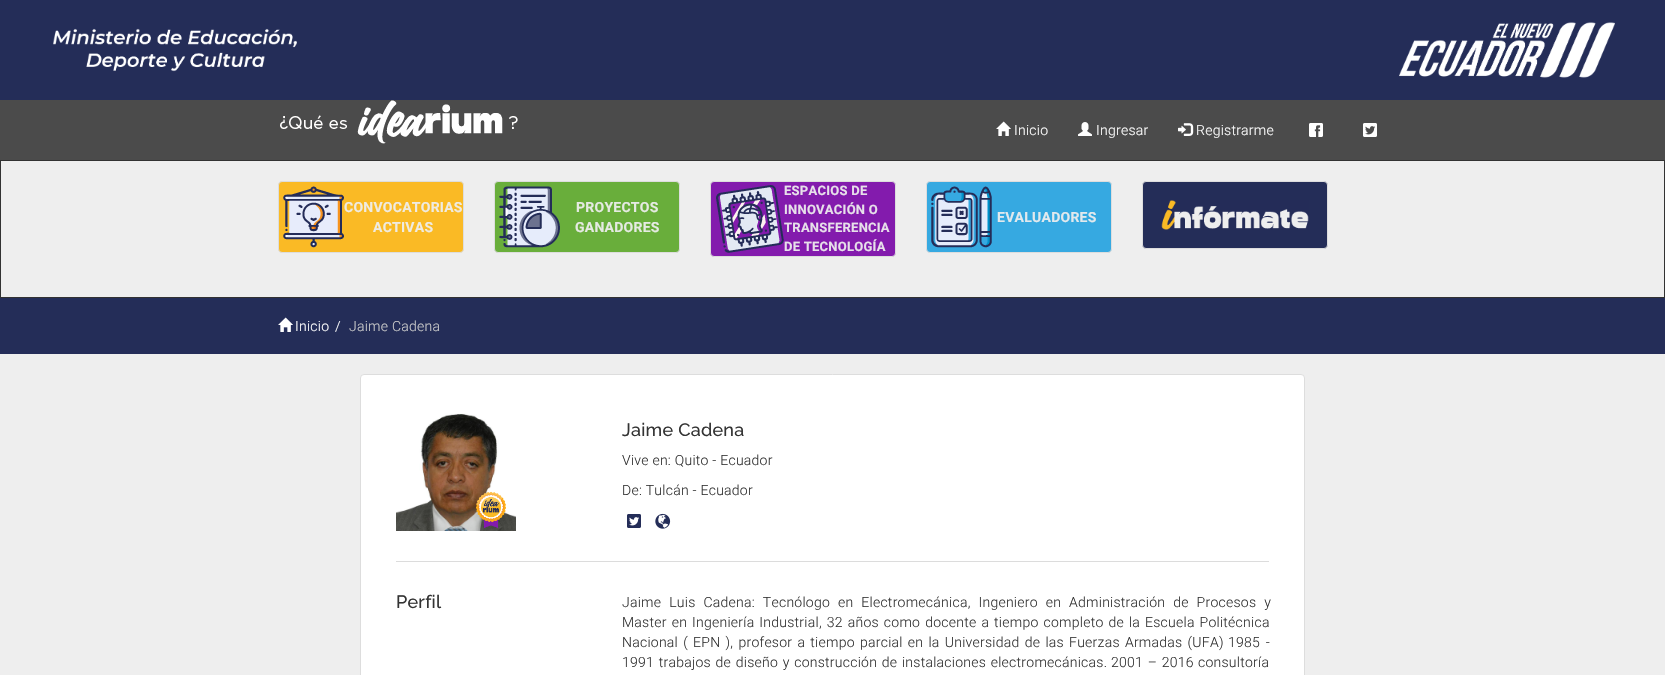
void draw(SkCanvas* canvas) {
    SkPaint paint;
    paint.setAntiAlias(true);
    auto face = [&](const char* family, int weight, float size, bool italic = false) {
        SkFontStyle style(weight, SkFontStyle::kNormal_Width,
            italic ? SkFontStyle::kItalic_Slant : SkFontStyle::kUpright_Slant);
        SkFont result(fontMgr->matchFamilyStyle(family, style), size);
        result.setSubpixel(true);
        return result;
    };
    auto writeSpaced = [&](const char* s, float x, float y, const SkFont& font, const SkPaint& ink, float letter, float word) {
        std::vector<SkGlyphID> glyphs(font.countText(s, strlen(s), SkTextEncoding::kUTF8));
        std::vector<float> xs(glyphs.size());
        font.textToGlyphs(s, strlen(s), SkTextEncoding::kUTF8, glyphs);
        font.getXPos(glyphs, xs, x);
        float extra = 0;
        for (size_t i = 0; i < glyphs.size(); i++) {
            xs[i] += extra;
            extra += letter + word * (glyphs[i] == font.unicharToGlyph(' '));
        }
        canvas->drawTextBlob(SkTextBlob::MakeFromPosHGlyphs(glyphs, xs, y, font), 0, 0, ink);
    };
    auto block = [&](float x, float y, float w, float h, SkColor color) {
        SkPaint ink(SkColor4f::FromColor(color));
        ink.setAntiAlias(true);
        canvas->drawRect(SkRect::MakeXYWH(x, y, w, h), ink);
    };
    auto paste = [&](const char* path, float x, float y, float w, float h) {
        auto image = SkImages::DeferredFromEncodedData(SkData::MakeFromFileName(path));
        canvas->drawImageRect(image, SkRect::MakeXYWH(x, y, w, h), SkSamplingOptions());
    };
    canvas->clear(SkColorSetRGB(238, 238, 238));
    block(0, 0, 1665, 100, SkColorSetRGB(36, 45, 88));
    paste("pic1.png", 53, 28, 244, 44);
    paste("pic2.png", 1399, 22, 216, 56);
    block(0, 100, 1665, 60, SkColorSetRGB(75, 75, 75));
    paste("pic3.png", 280, 100, 238, 44);
    paste("pic4.png", 996, 121, 15, 15);
    auto kFont1 = face("Roboto", 300, 14);
    paint.setColor(SK_ColorWHITE);
    writeSpaced("Inicio", 1014, 135, kFont1, paint, 0.25f, 0);
    paste("pic5.png", 1078, 122, 14, 14);
    writeSpaced("Ingresar", 1096, 135, kFont1, paint, 0.25f, 0);
    paste("pic6.png", 1178, 123, 16, 13);
    writeSpaced("Registrarme", 1196, 135, kFont1, paint, 0.25f, 0);
    paste("pic7.png", 1309, 123, 14, 14);
    paste("pic8.png", 1363, 123, 14, 14);
    paint.setStyle(SkPaint::kStroke_Style);
    paint.setStrokeWidth(1);
    paint.setColor(SkColorSetRGB(50, 50, 50));
    canvas->drawRect(SkRect::MakeXYWH(0.5f, 160.5f, 1664, 137), paint);
    paint.setStyle(SkPaint::kFill_Style);
    paint.setColor(SkColorSetRGB(250, 186, 37));
    canvas->drawRoundRect(SkRect::MakeXYWH(278.5f, 181.5f, 185, 71), 3.5f, 3.5f, paint);
    paint.setStyle(SkPaint::kStroke_Style);
    paint.setColor(SkColorSetRGB(221, 221, 221));
    canvas->drawRoundRect(SkRect::MakeXYWH(278.5f, 181.5f, 185, 71), 3.5f, 3.5f, paint);
    paste("pic9.png", 283, 186, 61, 62);
    auto kFont2 = face("Roboto", 700, 14);
    paint.setStyle(SkPaint::kFill_Style);
    paint.setColor(SkColorSetRGB(239, 235, 225));
    writeSpaced("CONVOCATORIAS", 344, 212, kFont2, paint, 0.25f, 0);
    writeSpaced("ACTIVAS", 373, 232, kFont2, paint, 0.25f, 0);
    paint.setColor(SkColorSetRGB(105, 174, 59));
    canvas->drawRoundRect(SkRect::MakeXYWH(494.5f, 181.5f, 185, 71), 3.5f, 3.5f, paint);
    paint.setStyle(SkPaint::kStroke_Style);
    paint.setColor(SkColorSetRGB(221, 221, 221));
    canvas->drawRoundRect(SkRect::MakeXYWH(494.5f, 181.5f, 185, 71), 3.5f, 3.5f, paint);
    paste("pic10.png", 499, 186, 61, 62);
    paint.setStyle(SkPaint::kFill_Style);
    paint.setColor(SkColorSetRGB(229, 234, 226));
    writeSpaced("PROYECTOS", 576, 212, kFont2, paint, 0.25f, 0);
    writeSpaced("GANADORES", 575, 232, kFont2, paint, 0.25f, 0);
    paint.setColor(SkColorSetRGB(131, 27, 173));
    canvas->drawRoundRect(SkRect::MakeXYWH(710.5f, 181.5f, 185, 75), 3.5f, 3.5f, paint);
    paint.setStyle(SkPaint::kStroke_Style);
    paint.setColor(SkColorSetRGB(221, 221, 221));
    canvas->drawRoundRect(SkRect::MakeXYWH(710.5f, 181.5f, 185, 75), 3.5f, 3.5f, paint);
    paste("pic11.png", 716, 185, 68, 68);
    auto kFont3 = face("Roboto", 700, 13);
    paint.setStyle(SkPaint::kFill_Style);
    paint.setColor(SkColorSetRGB(231, 224, 234));
    writeSpaced("ESPACIOS DE", 784, 195, kFont3, paint, 0.25f, 0);
    writeSpaced("INNOVACIÓN O", 784, 214, kFont3, paint, 0.25f, 0);
    writeSpaced("TRANSFERENCIA", 784, 232, kFont3, paint, 0.25f, 0);
    writeSpaced("DE TECNOLOGÍA", 784, 251, kFont3, paint, 0.25f, 0);
    paint.setColor(SkColorSetRGB(54, 169, 225));
    canvas->drawRoundRect(SkRect::MakeXYWH(926.5f, 181.5f, 185, 71), 3.5f, 3.5f, paint);
    paint.setStyle(SkPaint::kStroke_Style);
    paint.setColor(SkColorSetRGB(221, 221, 221));
    canvas->drawRoundRect(SkRect::MakeXYWH(926.5f, 181.5f, 185, 71), 3.5f, 3.5f, paint);
    paste("pic12.png", 931, 186, 61, 62);
    paint.setStyle(SkPaint::kFill_Style);
    paint.setColor(SkColorSetRGB(226, 233, 237));
    writeSpaced("EVALUADORES", 997, 222, kFont2, paint, 0.25f, 0);
    paint.setColor(SkColorSetRGB(36, 45, 88));
    canvas->drawRoundRect(SkRect::MakeXYWH(1142.5f, 181.5f, 185, 67), 3.5f, 3.5f, paint);
    paint.setStyle(SkPaint::kStroke_Style);
    paint.setColor(SkColorSetRGB(221, 221, 221));
    canvas->drawRoundRect(SkRect::MakeXYWH(1142.5f, 181.5f, 185, 67), 3.5f, 3.5f, paint);
    paste("pic13.png", 1161, 200, 148, 30);
    block(0, 298, 1665, 56, SkColorSetRGB(36, 45, 88));
    paste("pic14.png", 278, 317, 15, 15);
    paint.setStyle(SkPaint::kFill_Style);
    paint.setColor(SK_ColorWHITE);
    writeSpaced("Inicio", 295, 331, kFont1, paint, 0.25f, 0);
    writeSpaced("/", 335, 331, kFont1, paint, 0.25f, 0);
    paint.setColor(SkColorSetRGB(204, 204, 204));
    writeSpaced("Jaime Cadena", 349, 331, kFont1, paint, 0.25f, 0);
    paint.setColor(SK_ColorWHITE);
    canvas->drawRoundRect(SkRect::MakeXYWH(360.5f, 374.5f, 944, 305), 3.5f, 3.5f, paint);
    paint.setStyle(SkPaint::kStroke_Style);
    paint.setColor(SkColorSetRGB(221, 221, 221));
    canvas->drawRoundRect(SkRect::MakeXYWH(360.5f, 374.5f, 944, 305), 3.5f, 3.5f, paint);
    paste("pic15.png", 396, 413, 120, 118);
    paste("pic16.png", 476, 491, 30, 37);
    auto kFont4 = face("Raleway", 100, 18);
    paint.setStyle(SkPaint::kFill_Style);
    paint.setColor(SkColorSetRGB(51, 51, 51));
    writeSpaced("Jaime Cadena", 622, 436, kFont4, paint, 0.25f, 0);
    writeSpaced("Vive en: Quito - Ecuador", 622, 465, kFont1, paint, 0.25f, 0);
    writeSpaced("De: Tulcán - Ecuador", 622, 495, kFont1, paint, 0.25f, 0);
    paste("pic17.png", 627, 514, 14, 14);
    paste("pic18.png", 655, 513, 16, 16);
    block(396, 561, 873, 1, SkColorSetRGB(220, 220, 220));
    writeSpaced("Perfil", 396, 608, kFont4, paint, 0.25f, 0);
    writeSpaced("Jaime Luis Cadena: Tecnólogo en Electromecánica, Ingeniero en Administración de Procesos y", 622, 607, kFont1, paint, 0.25f, 4.25f);
    writeSpaced("Master en Ingeniería Industrial, 32 años como docente a tiempo completo de la Escuela Politécnica", 622, 627, kFont1, paint, 0.25f, 1.3f);
    writeSpaced("Nacional ( EPN ), profesor a tiempo parcial en la Universidad de las Fuerzas Armadas (UFA)", 622, 647, kFont1, paint, 0.25f, 1.5f);
    writeSpaced("1985 -", 1228, 647, kFont1, paint, 0.25f, 2);
    writeSpaced("1991 trabajos de diseño y construcción de instalaciones electromecánicas.", 622, 667, kFont1, paint, 0.25f, 1);
    writeSpaced("2001 – 2016", 1111, 667, kFont1, paint, 0.25f, 1);
    writeSpaced("consultoría", 1198, 667, kFont1, paint, 0.25f, 0);
}
